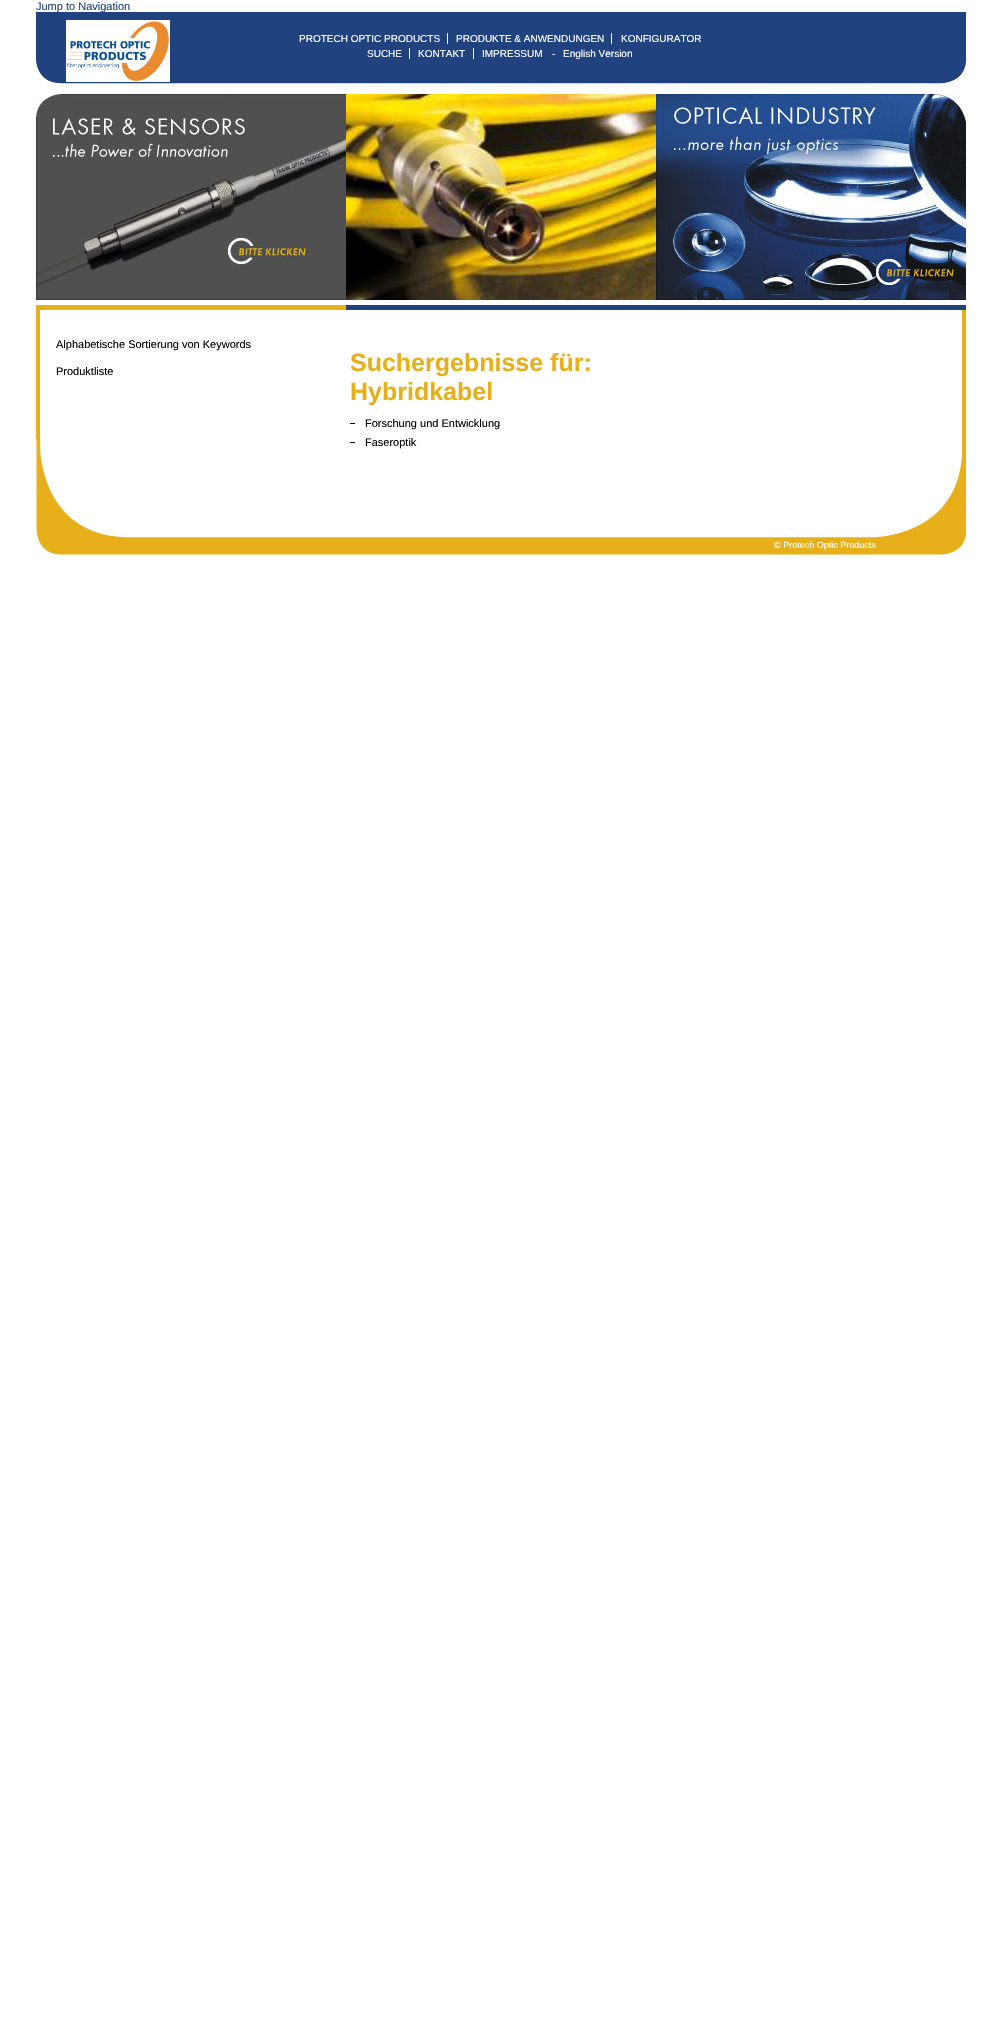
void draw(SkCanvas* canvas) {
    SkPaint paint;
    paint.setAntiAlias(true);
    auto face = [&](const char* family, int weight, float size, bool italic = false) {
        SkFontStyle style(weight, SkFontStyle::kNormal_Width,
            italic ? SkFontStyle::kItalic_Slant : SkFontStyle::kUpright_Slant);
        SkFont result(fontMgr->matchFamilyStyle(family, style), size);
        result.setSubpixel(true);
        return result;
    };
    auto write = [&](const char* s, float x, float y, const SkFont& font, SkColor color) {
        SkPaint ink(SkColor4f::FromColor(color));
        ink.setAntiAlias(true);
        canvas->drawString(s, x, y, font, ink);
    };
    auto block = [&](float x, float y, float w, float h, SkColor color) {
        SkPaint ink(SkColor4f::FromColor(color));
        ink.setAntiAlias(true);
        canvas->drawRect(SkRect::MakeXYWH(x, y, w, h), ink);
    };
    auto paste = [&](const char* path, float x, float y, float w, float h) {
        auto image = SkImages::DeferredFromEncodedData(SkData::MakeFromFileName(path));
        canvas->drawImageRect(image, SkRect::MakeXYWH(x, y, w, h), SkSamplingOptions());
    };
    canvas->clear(SK_ColorWHITE);
    auto kFont1 = face("Liberation Sans", 400, 11);
    write("Jump to Navigation", 36, 10, kFont1, SkColorSetRGB(32, 66, 127));
    paste("pic1.png", 36, 12, 930, 72);
    paste("pic2.png", 66, 20, 104, 62);
    auto kFont2 = face("Liberation Sans", 400, 10);
    write("PROTECH OPTIC PRODUCTS", 299, 42, kFont2, SK_ColorWHITE);
    block(447, 33, 1, 11, SK_ColorWHITE);
    write("PRODUKTE & ANWENDUNGEN", 456, 42, kFont2, SK_ColorWHITE);
    block(611, 33, 1, 11, SK_ColorWHITE);
    write("KONFIGURATOR", 621, 42, kFont2, SK_ColorWHITE);
    write("SUCHE", 367, 57, kFont2, SK_ColorWHITE);
    block(409, 48, 1, 11, SK_ColorWHITE);
    write("KONTAKT", 418, 57, kFont2, SK_ColorWHITE);
    block(473, 48, 1, 11, SK_ColorWHITE);
    write("IMPRESSUM", 482, 57, kFont2, SK_ColorWHITE);
    write("-", 552, 57, kFont2, SK_ColorWHITE);
    write("English Version", 563, 57, kFont2, SK_ColorWHITE);
    paste("pic3.png", 36, 94, 310, 206);
    paste("pic4.png", 346, 94, 310, 206);
    paste("pic5.png", 656, 94, 310, 206);
    block(36, 305, 310, 5, SkColorSetRGB(231, 175, 25));
    block(346, 305, 620, 5, SkColorSetRGB(32, 66, 127));
    block(962, 310, 4, 129, SkColorSetRGB(231, 175, 25));
    block(36, 310, 4, 129, SkColorSetRGB(231, 175, 25));
    write("Alphabetische Sortierung von Keywords", 56, 348, kFont1, SK_ColorBLACK);
    write("Produktliste", 56, 375, kFont1, SK_ColorBLACK);
    auto kFont3 = face("Liberation Sans", 700, 25);
    write("Suchergebnisse für:", 350, 371, kFont3, SkColorSetRGB(231, 175, 25));
    write("Hybridkabel", 350, 400, kFont3, SkColorSetRGB(231, 175, 25));
    block(350, 423, 5, 1, SK_ColorBLACK);
    write("Forschung und Entwicklung", 365, 427, kFont1, SK_ColorBLACK);
    paste("pic6.png", 36, 439, 930, 116);
    block(350, 442, 5, 1, SK_ColorBLACK);
    write("Faseroptik", 365, 446, kFont1, SK_ColorBLACK);
    auto kFont4 = face("Liberation Sans", 400, 9);
    write("© Protech Optic Products", 774, 548, kFont4, SK_ColorWHITE);
}
